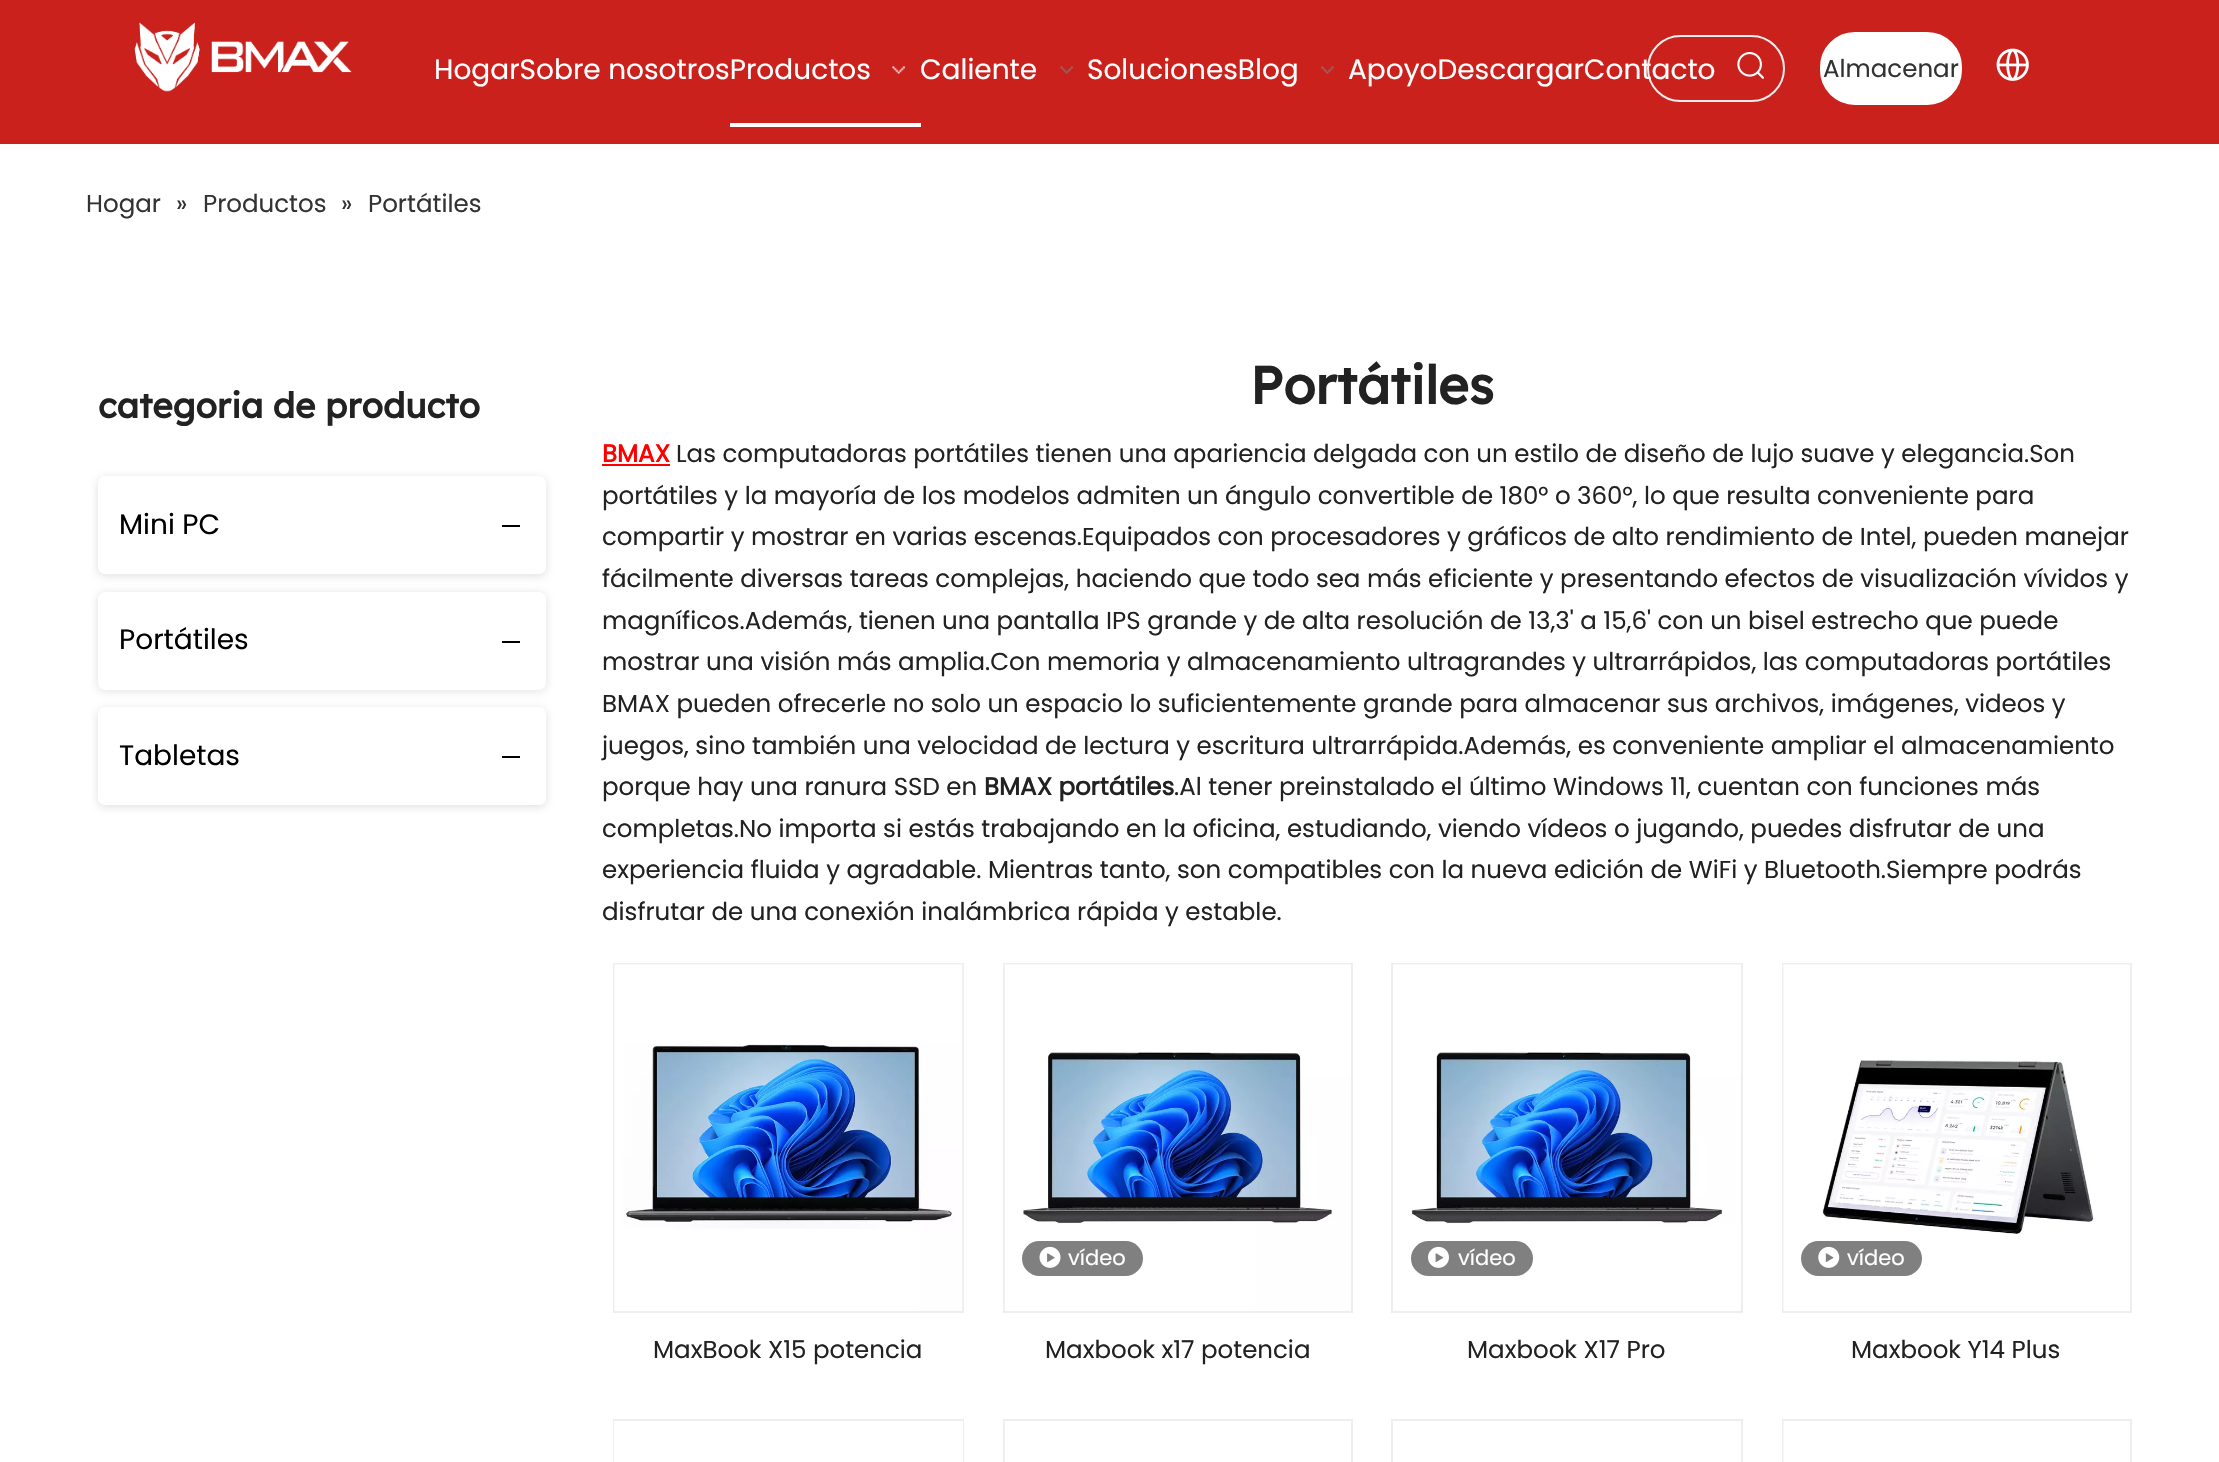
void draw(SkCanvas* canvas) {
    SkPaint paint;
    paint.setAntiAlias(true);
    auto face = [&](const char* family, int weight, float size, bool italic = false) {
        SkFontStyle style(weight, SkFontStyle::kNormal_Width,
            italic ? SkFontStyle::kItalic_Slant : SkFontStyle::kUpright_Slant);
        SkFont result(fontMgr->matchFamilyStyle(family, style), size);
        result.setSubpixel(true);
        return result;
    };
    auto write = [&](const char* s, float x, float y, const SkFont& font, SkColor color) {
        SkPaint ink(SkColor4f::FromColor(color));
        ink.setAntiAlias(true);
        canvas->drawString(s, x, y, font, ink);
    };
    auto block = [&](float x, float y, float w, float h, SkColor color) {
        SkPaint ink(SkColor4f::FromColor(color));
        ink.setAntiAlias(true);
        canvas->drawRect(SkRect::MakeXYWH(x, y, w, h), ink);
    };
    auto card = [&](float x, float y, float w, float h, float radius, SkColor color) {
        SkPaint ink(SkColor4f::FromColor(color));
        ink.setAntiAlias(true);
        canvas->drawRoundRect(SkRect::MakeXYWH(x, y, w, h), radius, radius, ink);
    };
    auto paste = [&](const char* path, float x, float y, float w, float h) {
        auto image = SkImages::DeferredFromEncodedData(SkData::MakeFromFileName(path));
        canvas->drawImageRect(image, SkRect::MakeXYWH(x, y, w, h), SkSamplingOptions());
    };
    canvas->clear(SK_ColorWHITE);
    block(0, 0, 2219, 144, SkColorSetRGB(202, 33, 29));
    paste("pic1.png", 134, 22, 218, 70);
    auto kFont1 = face("Poppins", 400, 28);
    write("HogarSobre nosotrosProductos", 434, 79, kFont1, SK_ColorWHITE);
    write("Caliente", 920, 79, kFont1, SK_ColorWHITE);
    paste("pic2.png", 1060, 66, 13, 8);
    write("SolucionesBlog", 1087, 79, kFont1, SK_ColorWHITE);
    write("ApoyoDescargarContacto", 1348, 79, kFont1, SK_ColorWHITE);
    block(730, 123, 191, 4, SK_ColorWHITE);
    paste("pic3.png", 892, 66, 13, 8);
    paste("pic4.png", 1321, 66, 13, 8);
    paint.setStyle(SkPaint::kStroke_Style);
    paint.setStrokeWidth(2);
    paint.setColor(SkColorSetRGB(238, 238, 238));
    canvas->drawRoundRect(SkRect::MakeXYWH(1648, 36, 136, 65), 32.5f, 32.5f, paint);
    paste("pic5.png", 1737, 52, 27, 27);
    paint.setStyle(SkPaint::kFill_Style);
    paint.setColor(SK_ColorWHITE);
    canvas->drawRoundRect(SkRect::MakeXYWH(1821, 33, 140, 71), 34, 34, paint);
    paint.setStyle(SkPaint::kStroke_Style);
    canvas->drawRoundRect(SkRect::MakeXYWH(1821, 33, 140, 71), 34, 34, paint);
    auto kFont2 = face("Poppins", 400, 24.5f);
    write("Almacenar", 1823, 77, kFont2, SkColorSetRGB(51, 51, 51));
    paste("pic6.png", 1996, 48, 33, 33);
    write("Hogar", 86, 212, kFont2, SkColorSetRGB(51, 51, 51));
    write("»", 176, 212, kFont2, SkColorSetRGB(51, 51, 51));
    write("Productos", 203, 212, kFont2, SkColorSetRGB(51, 51, 51));
    write("»", 341, 212, kFont2, SkColorSetRGB(51, 51, 51));
    write("Portátiles", 368, 212, kFont2, SkColorSetRGB(51, 51, 51));
    auto kFont3 = face("Lexend Deca", 700, 35);
    write("categoria de producto", 98, 418, kFont3, SkColorSetRGB(34, 34, 34));
    paint.setStyle(SkPaint::kFill_Style);
    paint.setColor(SkColorSetARGB(148, 200, 200, 200));
    paint.setMaskFilter(SkMaskFilter::MakeBlur(kNormal_SkBlurStyle, 5));
    canvas->drawRoundRect(SkRect::MakeXYWH(98, 478, 448, 98), 7, 7, paint);
    paint.setMaskFilter(nullptr);
    card(98, 476, 448, 98, 7, SK_ColorWHITE);
    write("Mini PC", 119, 534, kFont1, SK_ColorBLACK);
    block(502, 525, 18, 2, SK_ColorBLACK);
    paint.setMaskFilter(SkMaskFilter::MakeBlur(kNormal_SkBlurStyle, 5));
    canvas->drawRoundRect(SkRect::MakeXYWH(98, 593, 448, 98), 7, 7, paint);
    paint.setMaskFilter(nullptr);
    card(98, 592, 448, 98, 7, SK_ColorWHITE);
    write("Portátiles", 119, 649, kFont1, SK_ColorBLACK);
    block(502, 641, 18, 2, SK_ColorBLACK);
    paint.setMaskFilter(SkMaskFilter::MakeBlur(kNormal_SkBlurStyle, 5));
    canvas->drawRoundRect(SkRect::MakeXYWH(98, 709, 448, 98), 7, 7, paint);
    paint.setMaskFilter(nullptr);
    card(98, 707, 448, 98, 7, SK_ColorWHITE);
    write("Tabletas", 119, 765, kFont1, SK_ColorBLACK);
    block(502, 756, 18, 2, SK_ColorBLACK);
    auto kFont4 = face("Lexend Deca", 700, 52.5f);
    write("Portátiles", 1250, 404, kFont4, SkColorSetRGB(34, 34, 34));
    auto kFont5 = face("Poppins", 700, 24.5f);
    write("BMAX", 602, 462, kFont5, SkColorSetRGB(255, 0, 0));
    block(602, 464, 68, 2, SkColorSetRGB(255, 0, 0));
    write("Las computadoras portátiles tienen una apariencia delgada con un estilo de diseño de lujo suave y elegancia.Son", 676, 462, kFont2, SkColorSetRGB(34, 34, 34));
    write("portátiles y la mayoría de los modelos admiten un ángulo convertible de 180° o 360°, lo que resulta conveniente para", 602, 504, kFont2, SkColorSetRGB(34, 34, 34));
    write("compartir y mostrar en varias escenas.Equipados con procesadores y gráficos de alto rendimiento de Intel, pueden manejar", 602, 545, kFont2, SkColorSetRGB(34, 34, 34));
    write("fácilmente diversas tareas complejas, haciendo que todo sea más eficiente y presentando efectos de visualización vívidos y", 602, 587, kFont2, SkColorSetRGB(34, 34, 34));
    write("magníficos.Además, tienen una pantalla IPS grande y de alta resolución de 13,3' a 15,6' con un bisel estrecho que puede", 602, 629, kFont2, SkColorSetRGB(34, 34, 34));
    write("mostrar una visión más amplia.Con memoria y almacenamiento ultragrandes y ultrarrápidos, las computadoras portátiles", 602, 670, kFont2, SkColorSetRGB(34, 34, 34));
    write("BMAX pueden ofrecerle no solo un espacio lo suficientemente grande para almacenar sus archivos, imágenes, videos y", 602, 712, kFont2, SkColorSetRGB(34, 34, 34));
    write("juegos, sino también una velocidad de lectura y escritura ultrarrápida.Además, es conveniente ampliar el almacenamiento", 602, 754, kFont2, SkColorSetRGB(34, 34, 34));
    write("porque hay una ranura SSD en", 602, 795, kFont2, SkColorSetRGB(34, 34, 34));
    write("BMAX portátiles", 984, 795, kFont5, SkColorSetRGB(34, 34, 34));
    write(".Al tener preinstalado el último Windows 11, cuentan con funciones más", 1174, 795, kFont2, SkColorSetRGB(34, 34, 34));
    write("completas.No importa si estás trabajando en la oficina, estudiando, viendo vídeos o jugando, puedes disfrutar de una", 602, 837, kFont2, SkColorSetRGB(34, 34, 34));
    write("experiencia fluida y agradable. Mientras tanto, son compatibles con la nueva edición de WiFi y Bluetooth.Siempre podrás", 602, 878, kFont2, SkColorSetRGB(34, 34, 34));
    write("disfrutar de una conexión inalámbrica rápida y estable.", 602, 920, kFont2, SkColorSetRGB(34, 34, 34));
    paint.setStyle(SkPaint::kStroke_Style);
    paint.setColor(SkColorSetRGB(238, 238, 238));
    canvas->drawRect(SkRect::MakeXYWH(614, 964, 349, 348), paint);
    paste("pic7.png", 614, 964, 349, 347);
    write("MaxBook X15 potencia", 653, 1358, kFont2, SkColorSetRGB(34, 34, 34));
    canvas->drawRect(SkRect::MakeXYWH(1004, 964, 348, 348), paint);
    paste("pic8.png", 1004, 964, 347, 346);
    card(1022, 1241, 121, 35, 17.5f, SkColorSetRGB(128, 128, 128));
    paste("pic9.png", 1039, 1246, 22, 22);
    auto kFont6 = face("Poppins", 400, 21);
    write("vídeo", 1068, 1265, kFont6, SK_ColorWHITE);
    write("Maxbook x17 potencia", 1045, 1358, kFont2, SkColorSetRGB(34, 34, 34));
    canvas->drawRect(SkRect::MakeXYWH(1392, 964, 350, 348), paint);
    paste("pic10.png", 1393, 964, 348, 260);
    card(1411, 1241, 122, 35, 17.5f, SkColorSetRGB(128, 128, 128));
    paste("pic11.png", 1428, 1246, 21, 22);
    write("vídeo", 1458, 1265, kFont6, SK_ColorWHITE);
    write("Maxbook X17 Pro", 1467, 1358, kFont2, SkColorSetRGB(34, 34, 34));
    canvas->drawRect(SkRect::MakeXYWH(1783, 964, 348, 348), paint);
    paste("pic12.png", 1783, 964, 347, 347);
    card(1801, 1241, 121, 35, 17.5f, SkColorSetRGB(128, 128, 128));
    paste("pic13.png", 1818, 1246, 22, 22);
    write("vídeo", 1847, 1265, kFont6, SK_ColorWHITE);
    write("Maxbook Y14 Plus", 1851, 1358, kFont2, SkColorSetRGB(34, 34, 34));
    canvas->drawRect(SkRect::MakeXYWH(614, 1420, 349, 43), paint);
    block(614, 1421, 349, 41, SK_ColorWHITE);
    canvas->drawRect(SkRect::MakeXYWH(1004, 1420, 348, 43), paint);
    block(1004, 1421, 1, 41, SkColorSetRGB(242, 242, 242));
    canvas->drawRect(SkRect::MakeXYWH(1392, 1420, 350, 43), paint);
    canvas->drawRect(SkRect::MakeXYWH(1783, 1420, 348, 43), paint);
    block(1783, 1421, 1, 41, SkColorSetRGB(248, 248, 248));
}
